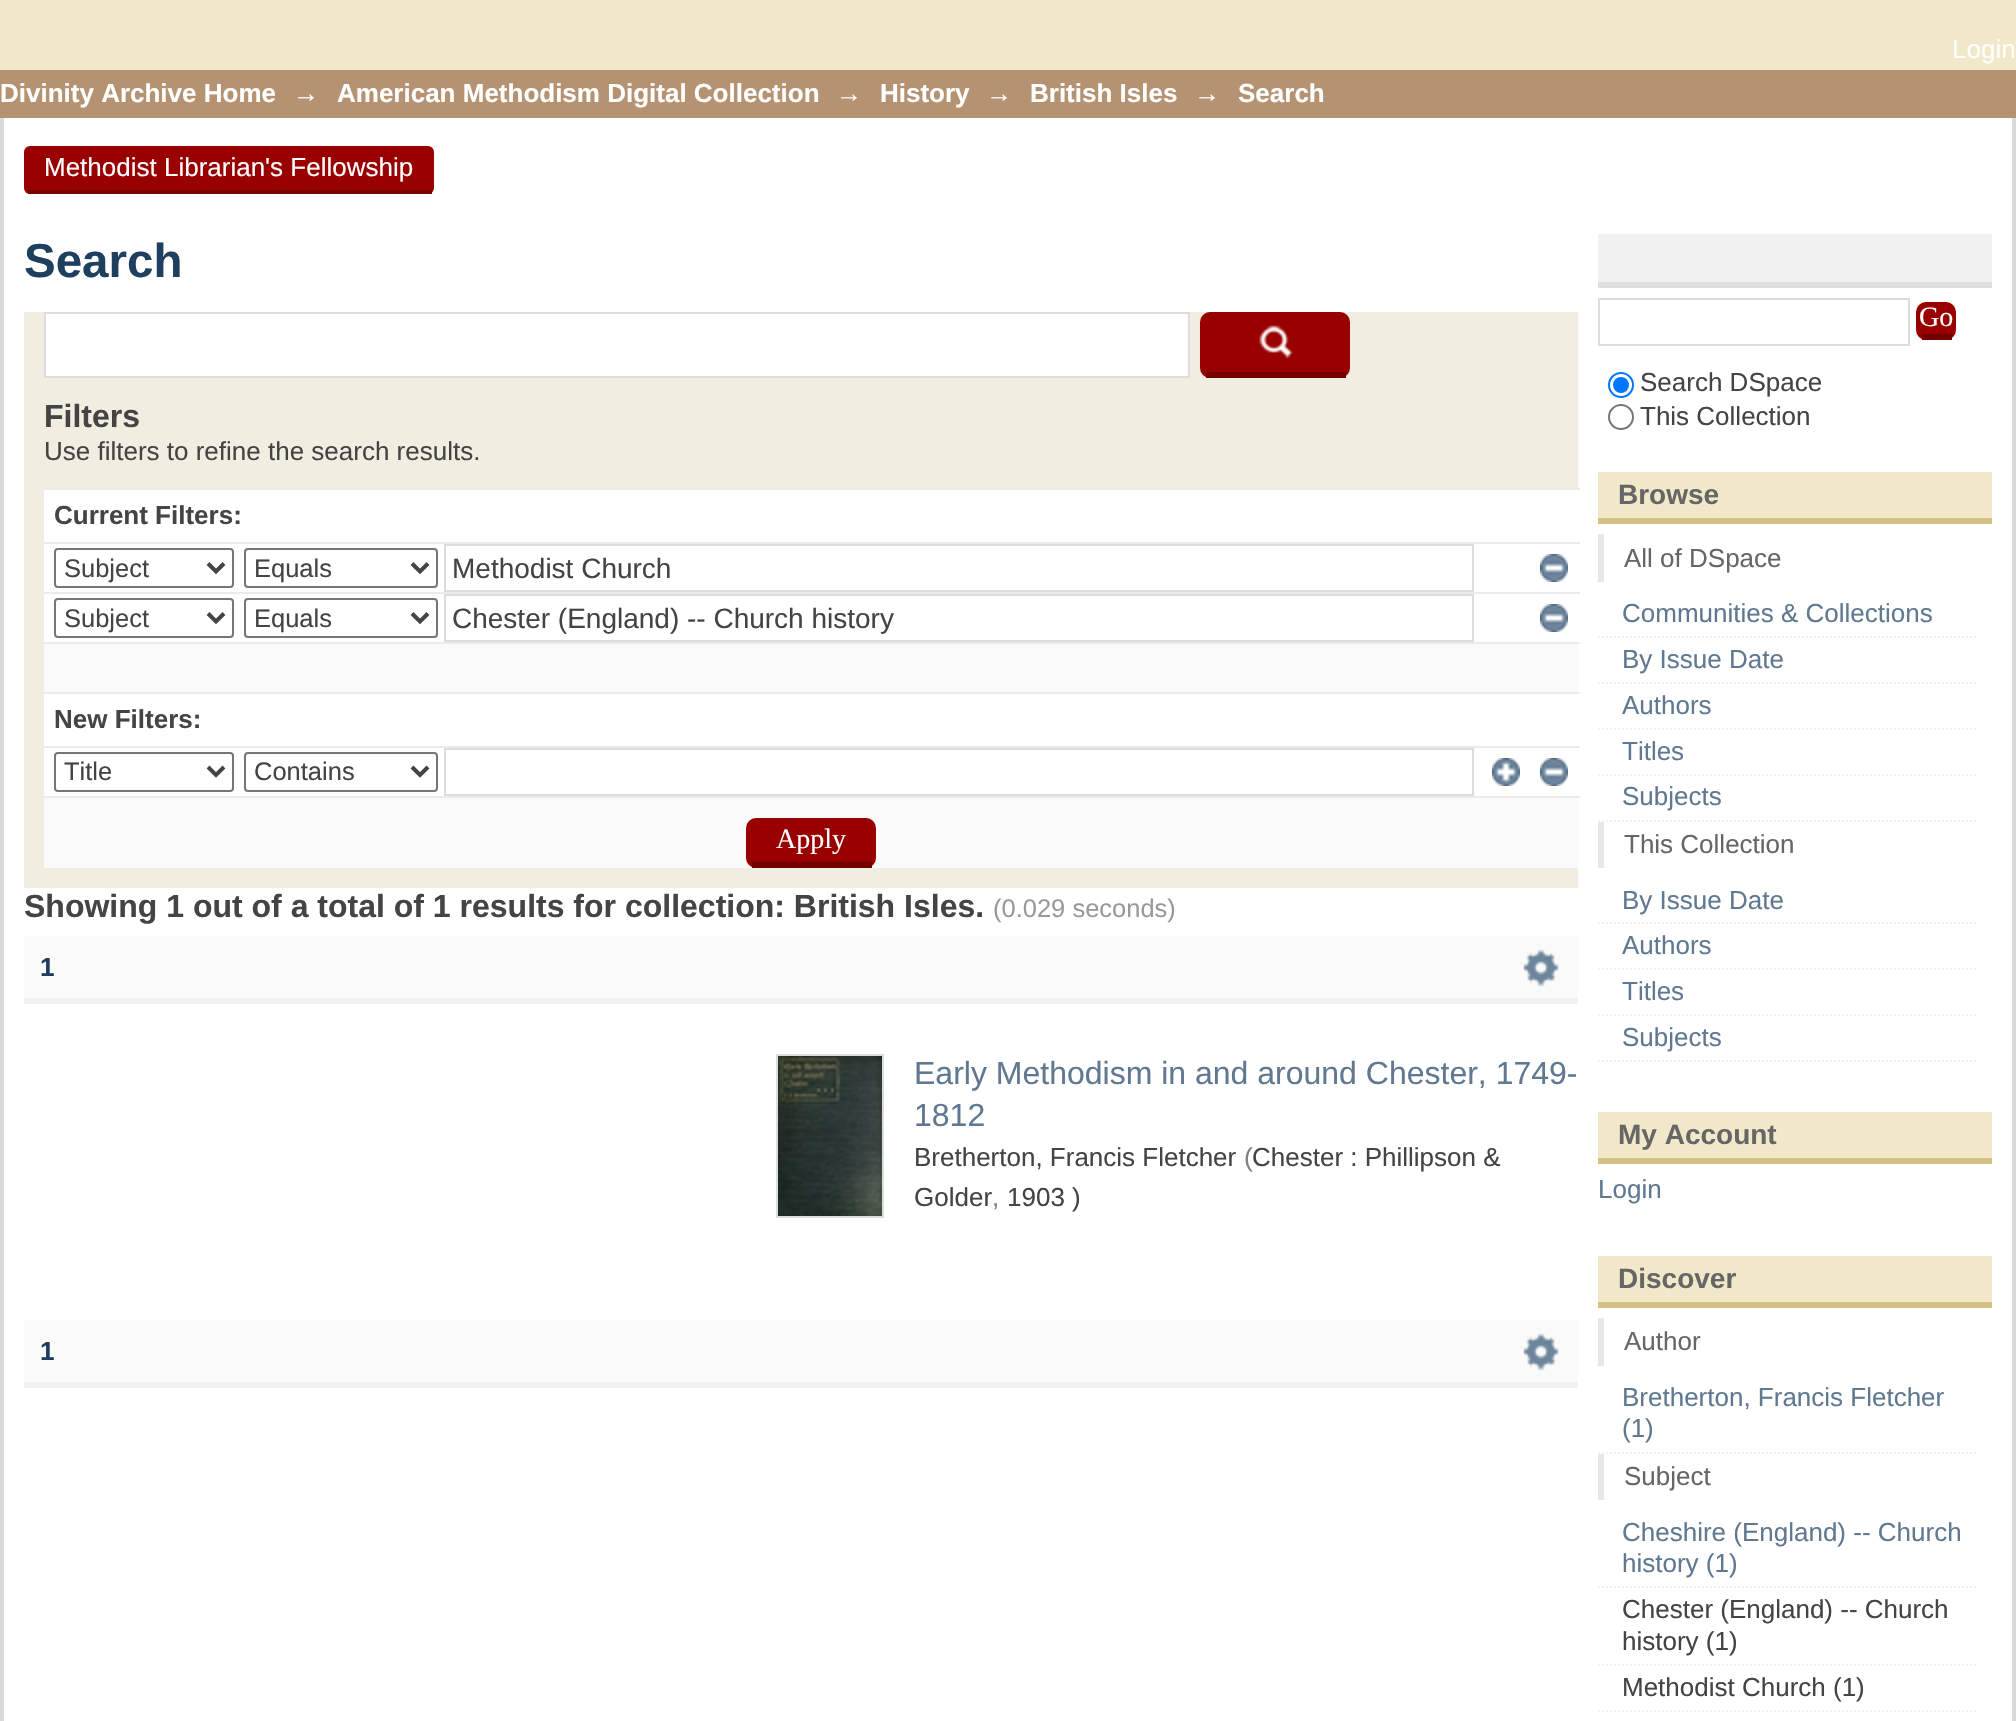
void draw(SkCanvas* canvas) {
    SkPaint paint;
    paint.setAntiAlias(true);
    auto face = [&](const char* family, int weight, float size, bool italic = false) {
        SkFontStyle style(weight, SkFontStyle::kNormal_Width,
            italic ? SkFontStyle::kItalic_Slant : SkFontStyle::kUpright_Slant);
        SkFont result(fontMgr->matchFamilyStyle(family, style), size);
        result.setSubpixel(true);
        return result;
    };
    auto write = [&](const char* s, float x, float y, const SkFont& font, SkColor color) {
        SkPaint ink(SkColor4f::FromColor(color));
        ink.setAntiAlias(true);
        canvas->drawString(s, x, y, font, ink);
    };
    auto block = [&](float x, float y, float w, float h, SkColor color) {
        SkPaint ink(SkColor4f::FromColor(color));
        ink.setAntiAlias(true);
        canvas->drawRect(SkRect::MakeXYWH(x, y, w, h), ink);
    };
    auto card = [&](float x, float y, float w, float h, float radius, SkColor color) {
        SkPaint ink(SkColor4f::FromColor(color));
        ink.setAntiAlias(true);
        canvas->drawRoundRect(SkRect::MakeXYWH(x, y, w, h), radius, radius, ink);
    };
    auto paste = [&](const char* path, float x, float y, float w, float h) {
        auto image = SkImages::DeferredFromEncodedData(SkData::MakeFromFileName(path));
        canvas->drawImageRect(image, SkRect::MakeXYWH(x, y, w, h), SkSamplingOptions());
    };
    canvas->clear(SkColorSetRGB(241, 232, 201));
    auto kFont1 = face("Liberation Sans", 400, 26);
    write("Login", 1952, 58, kFont1, SK_ColorWHITE);
    block(0, 70, 2016, 48, SkColorSetRGB(181, 147, 114));
    auto kFont2 = face("Liberation Sans", 700, 26);
    write("Divinity Archive Home", 0, 102, kFont2, SK_ColorWHITE);
    write("→", 293, 102, kFont2, SK_ColorWHITE);
    write("American Methodism Digital Collection", 337, 102, kFont2, SK_ColorWHITE);
    write("→", 836, 102, kFont2, SK_ColorWHITE);
    write("History", 880, 102, kFont2, SK_ColorWHITE);
    write("→", 986, 102, kFont2, SK_ColorWHITE);
    write("British Isles", 1030, 102, kFont2, SK_ColorWHITE);
    write("→", 1194, 102, kFont2, SK_ColorWHITE);
    write("Search", 1238, 102, kFont2, SK_ColorWHITE);
    block(4, 118, 2008, 1603, SK_ColorWHITE);
    card(24, 146, 410, 48, 6, SkColorSetRGB(153, 0, 0));
    block(28, 190, 404, 4, SkColorSetRGB(119, 0, 0));
    write("Methodist Librarian's Fellowship", 44, 176, kFont1, SK_ColorWHITE);
    block(2012, 118, 4, 1603, SkColorSetRGB(218, 218, 218));
    block(0, 118, 4, 1603, SkColorSetRGB(218, 218, 218));
    auto kFont3 = face("Liberation Sans", 700, 47.5f);
    write("Search", 24, 277, kFont3, SkColorSetRGB(31, 63, 94));
    block(24, 312, 1554, 576, SkColorSetRGB(241, 237, 225));
    paint.setColor(SK_ColorWHITE);
    canvas->drawRect(SkRect::MakeXYWH(45, 313, 1144, 64), paint);
    paint.setStyle(SkPaint::kStroke_Style);
    paint.setStrokeWidth(2);
    paint.setColor(SkColorSetRGB(220, 220, 220));
    canvas->drawRect(SkRect::MakeXYWH(45, 313, 1144, 64), paint);
    card(1200, 312, 150, 66, 10, SkColorSetRGB(153, 0, 0));
    paste("pic1.png", 1259, 325, 34, 34);
    block(1206, 372, 140, 6, SkColorSetRGB(117, 0, 0));
    auto kFont4 = face("Liberation Sans", 700, 32);
    write("Filters", 44, 427, kFont4, SkColorSetRGB(68, 68, 68));
    write("Use filters to refine the search results.", 44, 460, kFont1, SkColorSetRGB(68, 68, 68));
    block(44, 490, 1534, 306, SK_ColorWHITE);
    block(44, 488, 1536, 2, SkColorSetRGB(235, 235, 235));
    write("Current Filters:", 54, 524, kFont2, SkColorSetRGB(68, 68, 68));
    block(44, 542, 1536, 2, SkColorSetRGB(235, 235, 235));
    paint.setColor(SkColorSetRGB(118, 118, 118));
    canvas->drawRoundRect(SkRect::MakeXYWH(55, 549, 178, 38), 3, 3, paint);
    paint.setStrokeWidth(4);
    paint.setColor(SkColorSetRGB(68, 68, 68));
    canvas->drawPath(SkPathBuilder().moveTo(208, 563.5f).lineTo(216, 571.5f).lineTo(224, 563.5f).detach(), paint);
    auto kFont5 = face("Liberation Sans", 400, 25.5f);
    write("Subject", 64, 577, kFont5, SkColorSetRGB(68, 68, 68));
    paint.setStrokeWidth(2);
    paint.setColor(SkColorSetRGB(118, 118, 118));
    canvas->drawRoundRect(SkRect::MakeXYWH(245, 549, 192, 38), 3, 3, paint);
    paint.setStrokeWidth(4);
    paint.setColor(SkColorSetRGB(68, 68, 68));
    canvas->drawPath(SkPathBuilder().moveTo(412, 563.5f).lineTo(420, 571.5f).lineTo(428, 563.5f).detach(), paint);
    write("Equals", 254, 577, kFont5, SkColorSetRGB(68, 68, 68));
    paint.setStrokeWidth(2);
    paint.setColor(SkColorSetRGB(220, 220, 220));
    canvas->drawRect(SkRect::MakeXYWH(445, 545, 1028, 46), paint);
    auto kFont6 = face("Liberation Sans", 400, 28);
    write("Methodist Church", 452, 578, kFont6, SkColorSetRGB(68, 68, 68));
    paste("pic2.png", 1540, 554, 28, 28);
    block(44, 592, 1536, 2, SkColorSetRGB(235, 235, 235));
    paint.setColor(SkColorSetRGB(118, 118, 118));
    canvas->drawRoundRect(SkRect::MakeXYWH(55, 599, 178, 38), 3, 3, paint);
    paint.setStrokeWidth(4);
    paint.setColor(SkColorSetRGB(68, 68, 68));
    canvas->drawPath(SkPathBuilder().moveTo(208, 613.5f).lineTo(216, 621.5f).lineTo(224, 613.5f).detach(), paint);
    write("Subject", 64, 627, kFont5, SkColorSetRGB(68, 68, 68));
    paint.setStrokeWidth(2);
    paint.setColor(SkColorSetRGB(118, 118, 118));
    canvas->drawRoundRect(SkRect::MakeXYWH(245, 599, 192, 38), 3, 3, paint);
    paint.setStrokeWidth(4);
    paint.setColor(SkColorSetRGB(68, 68, 68));
    canvas->drawPath(SkPathBuilder().moveTo(412, 613.5f).lineTo(420, 621.5f).lineTo(428, 613.5f).detach(), paint);
    write("Equals", 254, 627, kFont5, SkColorSetRGB(68, 68, 68));
    paint.setStrokeWidth(2);
    paint.setColor(SkColorSetRGB(220, 220, 220));
    canvas->drawRect(SkRect::MakeXYWH(445, 595, 1028, 46), paint);
    write("Chester (England) -- Church history", 452, 628, kFont6, SkColorSetRGB(68, 68, 68));
    paste("pic2.png", 1540, 604, 28, 28);
    block(44, 644, 1534, 48, SkColorSetRGB(250, 250, 250));
    block(44, 642, 1536, 2, SkColorSetRGB(235, 235, 235));
    block(44, 692, 1536, 2, SkColorSetRGB(235, 235, 235));
    write("New Filters:", 54, 728, kFont2, SkColorSetRGB(68, 68, 68));
    block(44, 746, 1536, 2, SkColorSetRGB(235, 235, 235));
    paint.setColor(SkColorSetRGB(118, 118, 118));
    canvas->drawRoundRect(SkRect::MakeXYWH(55, 753, 178, 38), 3, 3, paint);
    paint.setStrokeWidth(4);
    paint.setColor(SkColorSetRGB(68, 68, 68));
    canvas->drawPath(SkPathBuilder().moveTo(208, 767).lineTo(216, 775).lineTo(224, 767).detach(), paint);
    write("Title", 64, 780, kFont5, SkColorSetRGB(68, 68, 68));
    paint.setStrokeWidth(2);
    paint.setColor(SkColorSetRGB(118, 118, 118));
    canvas->drawRoundRect(SkRect::MakeXYWH(245, 753, 192, 38), 3, 3, paint);
    paint.setStrokeWidth(4);
    paint.setColor(SkColorSetRGB(68, 68, 68));
    canvas->drawPath(SkPathBuilder().moveTo(412, 767).lineTo(420, 775).lineTo(428, 767).detach(), paint);
    write("Contains", 254, 780, kFont5, SkColorSetRGB(68, 68, 68));
    paint.setStrokeWidth(2);
    paint.setColor(SkColorSetRGB(220, 220, 220));
    canvas->drawRect(SkRect::MakeXYWH(445, 749, 1028, 46), paint);
    paste("pic3.png", 1492, 758, 28, 28);
    paste("pic2.png", 1540, 758, 28, 28);
    block(44, 798, 1534, 70, SkColorSetRGB(250, 250, 250));
    block(44, 796, 1536, 2, SkColorSetRGB(235, 235, 235));
    card(746, 818, 130, 50, 10, SkColorSetRGB(153, 0, 0));
    block(752, 862, 120, 6, SkColorSetRGB(117, 0, 0));
    auto kFont7 = face("Liberation Serif", 400, 28);
    write("Apply", 776, 848, kFont7, SK_ColorWHITE);
    write("Showing 1 out of a total of 1 results for collection: British Isles.", 24, 917, kFont4, SkColorSetRGB(68, 68, 68));
    write("(0.029 seconds)", 993, 917, kFont5, SkColorSetRGB(153, 153, 153));
    block(24, 936, 1554, 62, SkColorSetRGB(250, 250, 250));
    block(24, 998, 1554, 6, SkColorSetRGB(241, 241, 241));
    write("1", 40, 976, kFont2, SkColorSetRGB(31, 63, 94));
    paste("pic4.png", 1523, 949, 36, 38);
    canvas->drawRect(SkRect::MakeXYWH(777, 1055, 106, 162), paint);
    paste("pic5.png", 778, 1056, 104, 160);
    auto kFont8 = face("Liberation Sans", 400, 32);
    write("Early Methodism in and around Chester, 1749-", 914, 1084, kFont8, SkColorSetRGB(96, 120, 144));
    write("1812", 914, 1126, kFont8, SkColorSetRGB(96, 120, 144));
    write("Bretherton, Francis Fletcher", 914, 1166, kFont1, SkColorSetRGB(68, 68, 68));
    write("(", 1244, 1166, kFont1, SkColorSetRGB(128, 128, 128));
    write("Chester : Phillipson &", 1252, 1166, kFont1, SkColorSetRGB(68, 68, 68));
    write("Golder", 914, 1206, kFont1, SkColorSetRGB(68, 68, 68));
    write(",", 992, 1206, kFont1, SkColorSetRGB(128, 128, 128));
    write("1903 )", 1007, 1206, kFont1, SkColorSetRGB(68, 68, 68));
    block(24, 1320, 1554, 62, SkColorSetRGB(250, 250, 250));
    block(24, 1382, 1554, 6, SkColorSetRGB(241, 241, 241));
    write("1", 40, 1360, kFont2, SkColorSetRGB(31, 63, 94));
    paste("pic4.png", 1523, 1333, 36, 38);
    block(1598, 234, 394, 48, SkColorSetRGB(241, 241, 241));
    block(1598, 282, 394, 6, SkColorSetRGB(223, 223, 223));
    canvas->drawRect(SkRect::MakeXYWH(1599, 299, 310, 46), paint);
    card(1916, 302, 40, 38, 10, SkColorSetRGB(153, 0, 0));
    block(1922, 334, 30, 6, SkColorSetRGB(117, 0, 0));
    write("Go", 1919, 326, kFont7, SK_ColorWHITE);
    paint.setColor(SkColorSetRGB(0, 117, 255));
    canvas->drawCircle(1621, 385, 12, paint);
    paint.setStyle(SkPaint::kFill_Style);
    canvas->drawCircle(1621, 385, 8, paint);
    write("Search DSpace", 1640, 391, kFont1, SkColorSetRGB(68, 68, 68));
    paint.setStyle(SkPaint::kStroke_Style);
    paint.setColor(SkColorSetRGB(118, 118, 118));
    canvas->drawCircle(1621, 417, 12, paint);
    write("This Collection", 1640, 425, kFont1, SkColorSetRGB(68, 68, 68));
    block(1598, 472, 394, 46, SkColorSetRGB(241, 232, 201));
    block(1598, 518, 394, 6, SkColorSetRGB(211, 193, 132));
    auto kFont9 = face("Liberation Sans", 700, 28);
    write("Browse", 1618, 504, kFont9, SkColorSetRGB(102, 102, 102));
    block(1598, 534, 6, 48, SkColorSetRGB(231, 231, 231));
    write("All of DSpace", 1624, 567, kFont1, SkColorSetRGB(102, 102, 102));
    paint.setColor(SkColorSetRGB(241, 241, 241));
    paint.setPathEffect(SkDashPathEffect::Make({{2, 2}}, 0));
    canvas->drawPath(SkPathBuilder().moveTo(1598, 637).lineTo(1976, 637).detach(), paint);
    paint.setPathEffect(nullptr);
    write("Communities & Collections", 1622, 622, kFont1, SkColorSetRGB(96, 120, 144));
    paint.setPathEffect(SkDashPathEffect::Make({{2, 2}}, 0));
    canvas->drawPath(SkPathBuilder().moveTo(1598, 683).lineTo(1976, 683).detach(), paint);
    paint.setPathEffect(nullptr);
    write("By Issue Date", 1622, 668, kFont1, SkColorSetRGB(96, 120, 144));
    paint.setPathEffect(SkDashPathEffect::Make({{2, 2}}, 0));
    canvas->drawPath(SkPathBuilder().moveTo(1598, 729).lineTo(1976, 729).detach(), paint);
    paint.setPathEffect(nullptr);
    write("Authors", 1622, 714, kFont1, SkColorSetRGB(96, 120, 144));
    paint.setPathEffect(SkDashPathEffect::Make({{2, 2}}, 0));
    canvas->drawPath(SkPathBuilder().moveTo(1598, 775).lineTo(1976, 775).detach(), paint);
    paint.setPathEffect(nullptr);
    write("Titles", 1622, 760, kFont1, SkColorSetRGB(96, 120, 144));
    paint.setPathEffect(SkDashPathEffect::Make({{2, 2}}, 0));
    canvas->drawPath(SkPathBuilder().moveTo(1598, 821).lineTo(1976, 821).detach(), paint);
    paint.setPathEffect(nullptr);
    write("Subjects", 1622, 805, kFont1, SkColorSetRGB(96, 120, 144));
    block(1598, 822, 6, 46, SkColorSetRGB(231, 231, 231));
    write("This Collection", 1624, 853, kFont1, SkColorSetRGB(102, 102, 102));
    paint.setPathEffect(SkDashPathEffect::Make({{2, 2}}, 0));
    canvas->drawPath(SkPathBuilder().moveTo(1598, 923).lineTo(1976, 923).detach(), paint);
    paint.setPathEffect(nullptr);
    write("By Issue Date", 1622, 909, kFont1, SkColorSetRGB(96, 120, 144));
    paint.setPathEffect(SkDashPathEffect::Make({{2, 2}}, 0));
    canvas->drawPath(SkPathBuilder().moveTo(1598, 969).lineTo(1976, 969).detach(), paint);
    paint.setPathEffect(nullptr);
    write("Authors", 1622, 954, kFont1, SkColorSetRGB(96, 120, 144));
    paint.setPathEffect(SkDashPathEffect::Make({{2, 2}}, 0));
    canvas->drawPath(SkPathBuilder().moveTo(1598, 1015).lineTo(1976, 1015).detach(), paint);
    paint.setPathEffect(nullptr);
    write("Titles", 1622, 1000, kFont1, SkColorSetRGB(96, 120, 144));
    paint.setPathEffect(SkDashPathEffect::Make({{2, 2}}, 0));
    canvas->drawPath(SkPathBuilder().moveTo(1598, 1061).lineTo(1976, 1061).detach(), paint);
    paint.setPathEffect(nullptr);
    write("Subjects", 1622, 1046, kFont1, SkColorSetRGB(96, 120, 144));
    block(1598, 1112, 394, 46, SkColorSetRGB(241, 232, 201));
    block(1598, 1158, 394, 6, SkColorSetRGB(211, 193, 132));
    write("My Account", 1618, 1144, kFont9, SkColorSetRGB(102, 102, 102));
    write("Login", 1598, 1198, kFont1, SkColorSetRGB(96, 120, 144));
    block(1598, 1256, 394, 46, SkColorSetRGB(241, 232, 201));
    block(1598, 1302, 394, 6, SkColorSetRGB(211, 193, 132));
    write("Discover", 1618, 1288, kFont9, SkColorSetRGB(102, 102, 102));
    block(1598, 1318, 6, 48, SkColorSetRGB(231, 231, 231));
    write("Author", 1624, 1350, kFont1, SkColorSetRGB(102, 102, 102));
    paint.setPathEffect(SkDashPathEffect::Make({{2, 2}}, 0));
    canvas->drawPath(SkPathBuilder().moveTo(1598, 1453).lineTo(1976, 1453).detach(), paint);
    paint.setPathEffect(nullptr);
    write("Bretherton, Francis Fletcher", 1622, 1406, kFont1, SkColorSetRGB(96, 120, 144));
    write("(1)", 1622, 1437, kFont1, SkColorSetRGB(96, 120, 144));
    block(1598, 1454, 6, 46, SkColorSetRGB(231, 231, 231));
    write("Subject", 1624, 1485, kFont1, SkColorSetRGB(102, 102, 102));
    paint.setPathEffect(SkDashPathEffect::Make({{2, 2}}, 0));
    canvas->drawPath(SkPathBuilder().moveTo(1598, 1587).lineTo(1976, 1587).detach(), paint);
    paint.setPathEffect(nullptr);
    write("Cheshire (England) -- Church", 1622, 1541, kFont1, SkColorSetRGB(96, 120, 144));
    write("history (1)", 1622, 1572, kFont1, SkColorSetRGB(96, 120, 144));
    paint.setPathEffect(SkDashPathEffect::Make({{2, 2}}, 0));
    canvas->drawPath(SkPathBuilder().moveTo(1598, 1665).lineTo(1976, 1665).detach(), paint);
    paint.setPathEffect(nullptr);
    write("Chester (England) -- Church", 1622, 1618, kFont1, SkColorSetRGB(68, 68, 68));
    write("history (1)", 1622, 1650, kFont1, SkColorSetRGB(68, 68, 68));
    paint.setPathEffect(SkDashPathEffect::Make({{2, 2}}, 0));
    canvas->drawPath(SkPathBuilder().moveTo(1598, 1711).lineTo(1976, 1711).detach(), paint);
    paint.setPathEffect(nullptr);
    write("Methodist Church (1)", 1622, 1696, kFont1, SkColorSetRGB(68, 68, 68));
}
